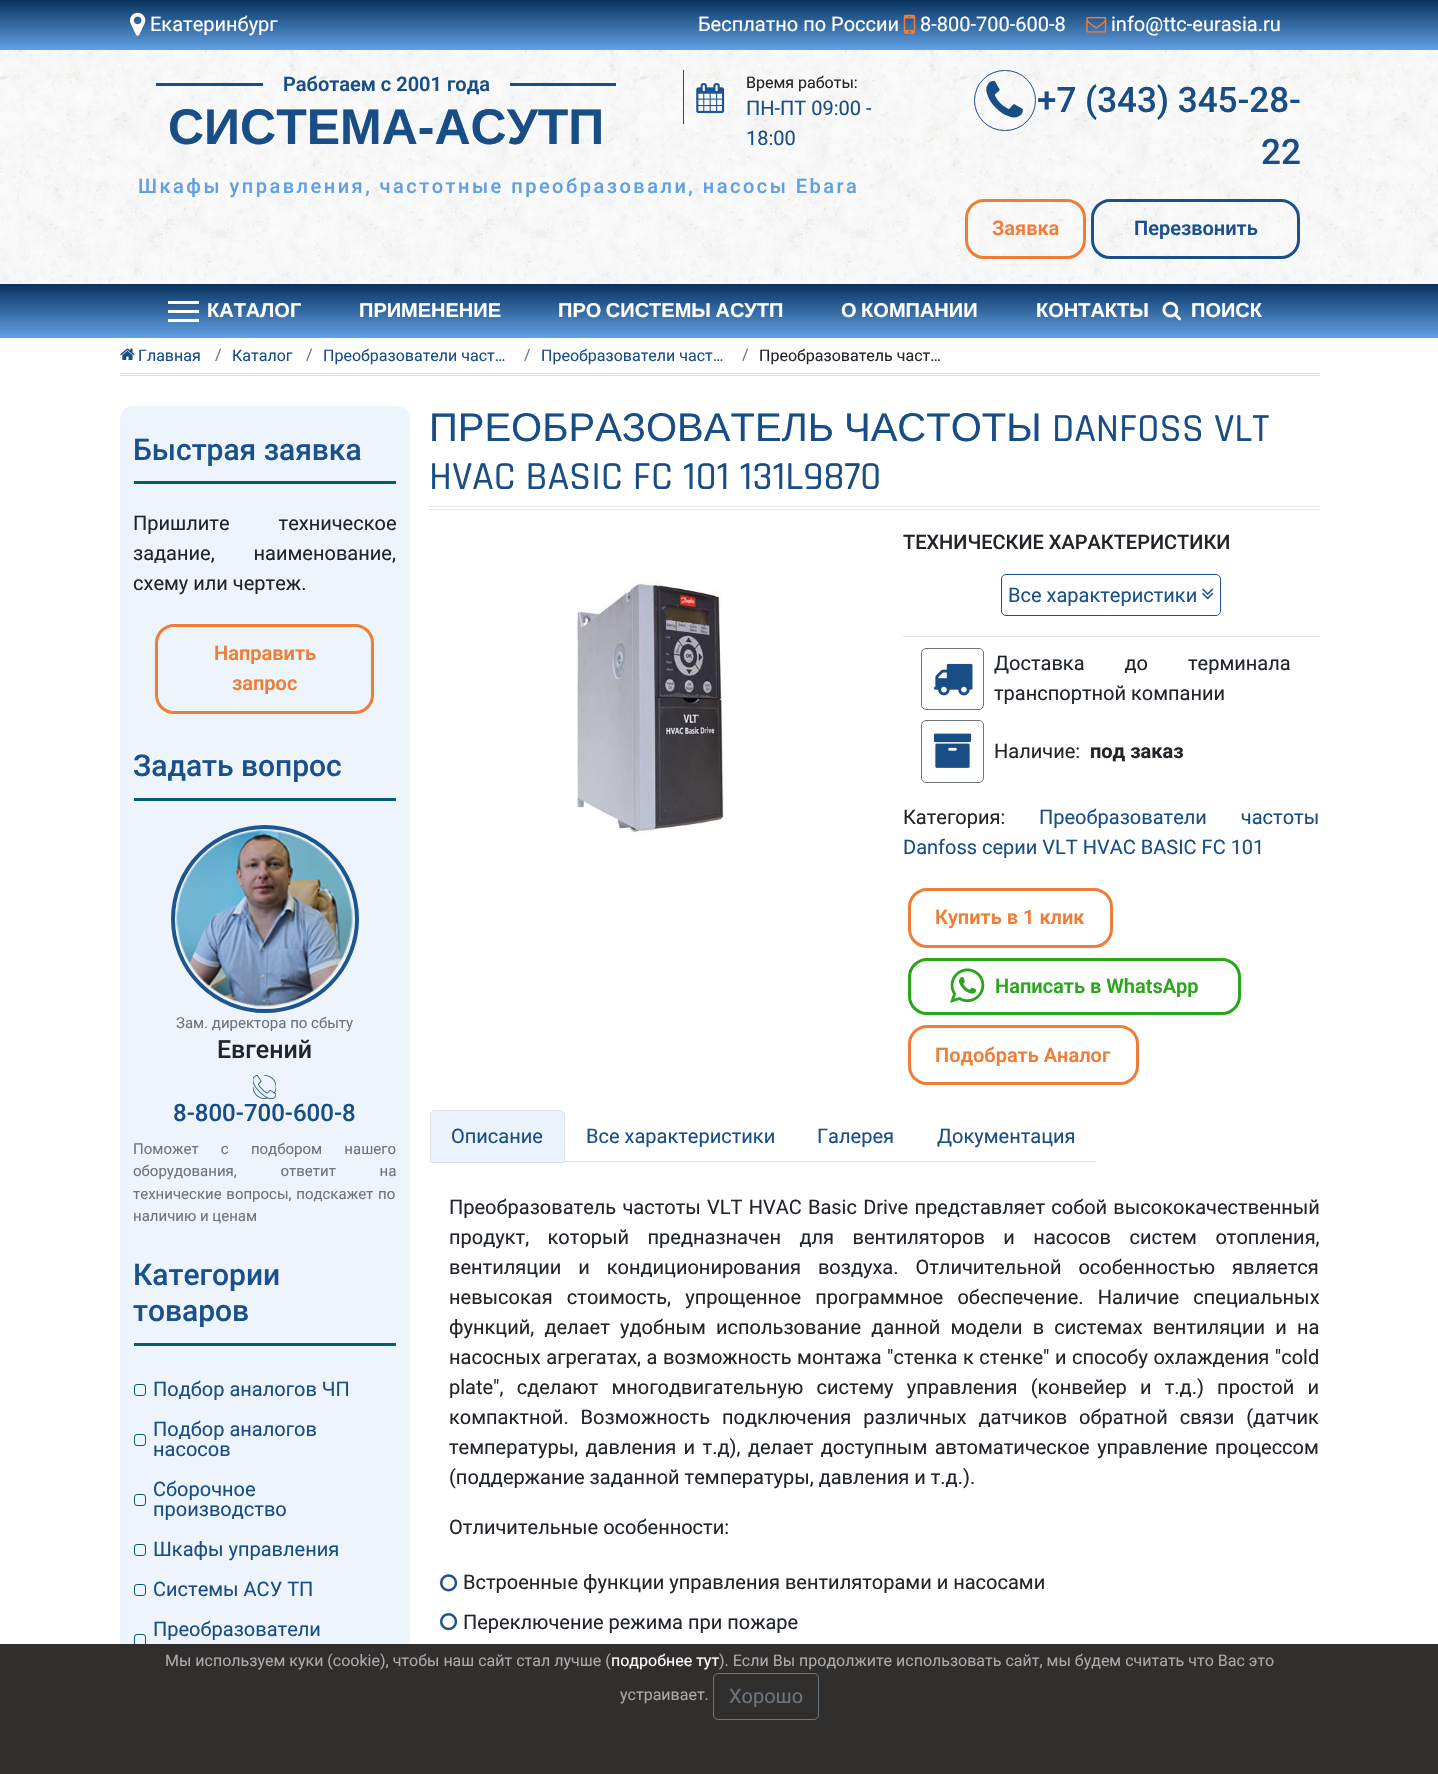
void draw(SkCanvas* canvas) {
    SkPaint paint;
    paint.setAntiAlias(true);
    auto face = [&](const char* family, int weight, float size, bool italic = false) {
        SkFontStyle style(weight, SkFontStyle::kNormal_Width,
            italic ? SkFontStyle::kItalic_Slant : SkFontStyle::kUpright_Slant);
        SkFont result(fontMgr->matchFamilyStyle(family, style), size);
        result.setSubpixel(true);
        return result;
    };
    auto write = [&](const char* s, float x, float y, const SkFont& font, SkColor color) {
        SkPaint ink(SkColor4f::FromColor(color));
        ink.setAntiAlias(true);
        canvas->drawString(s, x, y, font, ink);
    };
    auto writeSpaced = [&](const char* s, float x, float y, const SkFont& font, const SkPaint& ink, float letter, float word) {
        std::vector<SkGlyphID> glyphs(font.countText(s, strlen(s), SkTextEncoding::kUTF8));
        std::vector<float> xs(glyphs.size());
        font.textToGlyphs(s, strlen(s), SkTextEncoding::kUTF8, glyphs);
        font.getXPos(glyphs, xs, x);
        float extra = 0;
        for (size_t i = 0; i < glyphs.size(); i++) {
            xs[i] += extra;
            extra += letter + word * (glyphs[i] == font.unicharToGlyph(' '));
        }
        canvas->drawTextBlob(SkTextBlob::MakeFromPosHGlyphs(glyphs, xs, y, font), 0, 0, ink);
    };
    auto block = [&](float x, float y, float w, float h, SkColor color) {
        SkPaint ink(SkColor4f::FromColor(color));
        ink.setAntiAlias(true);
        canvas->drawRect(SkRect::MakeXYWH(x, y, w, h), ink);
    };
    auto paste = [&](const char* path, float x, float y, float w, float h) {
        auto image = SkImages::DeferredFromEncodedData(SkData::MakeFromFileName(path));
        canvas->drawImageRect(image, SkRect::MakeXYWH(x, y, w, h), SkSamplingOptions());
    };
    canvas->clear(SK_ColorWHITE);
    {
        const SkColor colors[] = {SkColorSetRGB(97, 161, 228), SkColorSetRGB(8, 50, 95)};
        const float stops[] = {0, 1};
        const SkPoint ends[] = {{719, 50}, {719, 0}};
        paint.setShader(SkGradientShader::MakeLinear(ends, colors, stops, 2, SkTileMode::kClamp));
        paint.setAlpha(255);
    }
    canvas->drawRect(SkRect::MakeXYWH(0, 0, 1438, 50), paint);
    paste("pic1.png", 130, 12, 16, 24);
    auto kFont1 = face("Roboto", 400, 20);
    write("Екатеринбург", 150, 31, kFont1, SK_ColorWHITE);
    write("Бесплатно по России", 698, 31, kFont1, SK_ColorWHITE);
    paste("pic2.png", 903, 14, 13, 20);
    write("8-800-700-600-8", 920, 31, kFont1, SK_ColorWHITE);
    paste("pic3.png", 1086, 16, 21, 17);
    write("info@ttc-eurasia.ru", 1111, 31, kFont1, SK_ColorWHITE);
    paste("pic4.png", 0, 50, 1438, 234);
    block(156, 83, 107, 3, SkColorSetRGB(25, 77, 134));
    auto kFont2 = face("Roboto", 600, 20);
    write("Работаем с 2001 года", 283, 91, kFont2, SkColorSetRGB(25, 77, 134));
    block(510, 83, 106, 3, SkColorSetRGB(25, 77, 134));
    auto kFont3 = face("Liberation Sans", 700, 50);
    write("СИСТЕМА-АСУТП", 168, 144, kFont3, SkColorSetRGB(25, 77, 134));
    block(683, 70, 1, 54, SkColorSetRGB(25, 77, 134));
    paste("pic5.png", 696, 83, 29, 31);
    auto kFont4 = face("Roboto", 400, 16);
    write("Время работы:", 746, 88, kFont4, SkColorSetRGB(33, 37, 41));
    write("ПН-ПТ 09:00 -", 746, 115, kFont1, SkColorSetRGB(25, 77, 134));
    write("18:00", 746, 145, kFont1, SkColorSetRGB(25, 77, 134));
    auto kFont5 = face("Roboto", 500, 20);
    paint.setShader(nullptr);
    paint.setColor(SkColorSetRGB(95, 159, 226));
    writeSpaced("Шкафы управления, частотные преобразовали, насосы Ebara", 138, 193, kFont5, paint, 2.5f, 0);
    paint.setStyle(SkPaint::kStroke_Style);
    paint.setStrokeWidth(1);
    paint.setColor(SkColorSetRGB(25, 77, 134));
    canvas->drawRoundRect(SkRect::MakeXYWH(974.5f, 70.5f, 61, 60), 30, 30, paint);
    paste("pic6.png", 986, 80, 37, 38);
    auto kFont6 = face("Roboto", 500, 35);
    write("+7 (343) 345-28-", 1037, 112, kFont6, SkColorSetRGB(25, 77, 134));
    write("22", 1261, 164, kFont6, SkColorSetRGB(25, 77, 134));
    paint.setStrokeWidth(3);
    paint.setColor(SkColorSetRGB(240, 125, 53));
    canvas->drawRoundRect(SkRect::MakeXYWH(966.5f, 200.5f, 118, 57), 17.5f, 17.5f, paint);
    write("Заявка", 992, 235, kFont2, SkColorSetRGB(240, 125, 53));
    paint.setColor(SkColorSetRGB(26, 81, 140));
    canvas->drawRoundRect(SkRect::MakeXYWH(1092.5f, 200.5f, 206, 57), 17.5f, 17.5f, paint);
    write("Перезвонить", 1134, 235, kFont2, SkColorSetRGB(26, 81, 140));
    paint.setStyle(SkPaint::kFill_Style);
    {
        const SkColor colors[] = {SkColorSetRGB(97, 161, 228), SkColorSetRGB(8, 50, 95)};
        const float stops[] = {0, 1};
        const SkPoint ends[] = {{719, 338}, {719, 284}};
        paint.setShader(SkGradientShader::MakeLinear(ends, colors, stops, 2, SkTileMode::kClamp));
        paint.setAlpha(255);
    }
    canvas->drawRect(SkRect::MakeXYWH(0, 284, 1438, 54), paint);
    block(168, 301, 31, 3, SK_ColorWHITE);
    block(168, 310, 31, 3, SK_ColorWHITE);
    block(168, 319, 31, 3, SK_ColorWHITE);
    auto kFont7 = face("Liberation Sans", 700, 20);
    write("КАТАЛОГ", 207, 317, kFont7, SK_ColorWHITE);
    write("ПРИМЕНЕНИЕ", 359, 317, kFont7, SK_ColorWHITE);
    paint.setShader(nullptr);
    paint.setColor(SK_ColorWHITE);
    writeSpaced("ПРО СИСТЕМЫ АСУТП", 558, 317, kFont7, paint, 0, -1);
    writeSpaced("О КОМПАНИИ", 841, 317, kFont7, paint, 0, -1);
    write("КОНТАКТЫ", 1036, 317, kFont7, SK_ColorWHITE);
    paste("pic7.png", 1162, 301, 19, 20);
    write("ПОИСК", 1191, 317, kFont7, SK_ColorWHITE);
    block(120, 373, 1200, 1, SkColorSetRGB(221, 221, 221));
    block(120, 375, 1200, 1, SkColorSetRGB(221, 221, 221));
    paste("pic8.png", 120, 348, 15, 12);
    write("Главная", 138, 361, kFont4, SkColorSetRGB(25, 77, 134));
    write("/", 215, 360, kFont4, SkColorSetRGB(108, 117, 125));
    write("Каталог", 232, 361, kFont4, SkColorSetRGB(25, 77, 134));
    write("/", 306, 360, kFont4, SkColorSetRGB(108, 117, 125));
    write("Преобразователи част…", 323, 361, kFont4, SkColorSetRGB(25, 77, 134));
    write("/", 524, 360, kFont4, SkColorSetRGB(108, 117, 125));
    write("Преобразователи част…", 541, 361, kFont4, SkColorSetRGB(25, 77, 134));
    write("/", 742, 360, kFont4, SkColorSetRGB(108, 117, 125));
    write("Преобразователь част…", 759, 361, kFont4, SkColorSetRGB(33, 37, 41));
    paint.setColor(SkColorSetRGB(237, 244, 252));
    canvas->drawRoundRect(SkRect::MakeXYWH(120.5f, 406.5f, 289, 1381), 12.5f, 12.5f, paint);
    paint.setStyle(SkPaint::kStroke_Style);
    paint.setStrokeWidth(1);
    paint.setColor(SkColorSetRGB(235, 243, 252));
    canvas->drawRoundRect(SkRect::MakeXYWH(120.5f, 406.5f, 289, 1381), 12.5f, 12.5f, paint);
    block(134, 481, 262, 3, SkColorSetRGB(2, 92, 114));
    auto kFont8 = face("Roboto", 500, 30);
    write("Быстрая заявка", 133, 460, kFont8, SkColorSetRGB(26, 81, 140));
    paint.setStyle(SkPaint::kFill_Style);
    paint.setColor(SkColorSetRGB(33, 37, 41));
    writeSpaced("Пришлите техническое", 133, 530, kFont1, paint, 0, 44);
    writeSpaced("задание, наименование,", 133, 560, kFont1, paint, 0, 34);
    write("схему или чертеж.", 133, 590, kFont1, SkColorSetRGB(33, 37, 41));
    paint.setStyle(SkPaint::kStroke_Style);
    paint.setStrokeWidth(3);
    paint.setColor(SkColorSetRGB(240, 125, 53));
    canvas->drawRoundRect(SkRect::MakeXYWH(156.5f, 625.5f, 216, 87), 17.5f, 17.5f, paint);
    write("Направить", 214, 660, kFont2, SkColorSetRGB(240, 125, 53));
    write("запрос", 232, 690, kFont2, SkColorSetRGB(240, 125, 53));
    block(134, 798, 262, 3, SkColorSetRGB(2, 92, 114));
    write("Задать вопрос", 133, 776, kFont8, SkColorSetRGB(26, 81, 140));
    paint.setStrokeWidth(4);
    paint.setColor(SkColorSetRGB(30, 85, 143));
    canvas->drawCircle(265, 919, 92, paint);
    paste("pic9.png", 176, 829, 177, 178);
    auto kFont9 = face("Roboto", 400, 15);
    write("Зам. директора по сбыту", 176, 1028, kFont9, SkColorSetRGB(108, 117, 125));
    auto kFont10 = face("Roboto", 500, 25);
    write("Евгений", 217, 1058, kFont10, SkColorSetRGB(33, 37, 41));
    paste("pic10.png", 253, 1075, 23, 24);
    auto kFont11 = face("Roboto", 500, 24);
    write("8-800-700-600-8", 173, 1121, kFont11, SkColorSetRGB(25, 77, 134));
    paint.setStyle(SkPaint::kFill_Style);
    paint.setColor(SkColorSetRGB(108, 117, 125));
    writeSpaced("Поможет с подбором нашего", 133, 1154, kFont9, paint, 0, 18.5f);
    writeSpaced("оборудования, ответит на", 133, 1176, kFont9, paint, 0, 40);
    writeSpaced("технические вопросы, подскажет по", 133, 1199, kFont9, paint, 0, 1);
    write("наличию и ценам", 133, 1221, kFont9, SkColorSetRGB(108, 117, 125));
    block(134, 1343, 262, 3, SkColorSetRGB(2, 92, 114));
    write("Категории", 133, 1285, kFont8, SkColorSetRGB(26, 81, 140));
    write("товаров", 133, 1321, kFont8, SkColorSetRGB(26, 81, 140));
    paint.setStyle(SkPaint::kStroke_Style);
    paint.setStrokeWidth(1);
    paint.setColor(SkColorSetRGB(2, 92, 114));
    canvas->drawRoundRect(SkRect::MakeXYWH(134.5f, 1384.5f, 11, 11), 2.5f, 2.5f, paint);
    write("Подбор аналогов ЧП", 153, 1396, kFont1, SkColorSetRGB(25, 77, 134));
    canvas->drawRoundRect(SkRect::MakeXYWH(134.5f, 1434.5f, 11, 11), 2.5f, 2.5f, paint);
    write("Подбор аналогов", 153, 1436, kFont1, SkColorSetRGB(25, 77, 134));
    write("насосов", 153, 1456, kFont1, SkColorSetRGB(25, 77, 134));
    canvas->drawRoundRect(SkRect::MakeXYWH(134.5f, 1494.5f, 11, 11), 2.5f, 2.5f, paint);
    write("Сборочное", 153, 1496, kFont1, SkColorSetRGB(25, 77, 134));
    write("производство", 153, 1516, kFont1, SkColorSetRGB(25, 77, 134));
    canvas->drawRoundRect(SkRect::MakeXYWH(134.5f, 1544.5f, 11, 11), 2.5f, 2.5f, paint);
    write("Шкафы управления", 153, 1556, kFont1, SkColorSetRGB(25, 77, 134));
    canvas->drawRoundRect(SkRect::MakeXYWH(134.5f, 1584.5f, 11, 11), 2.5f, 2.5f, paint);
    write("Системы АСУ ТП", 153, 1596, kFont1, SkColorSetRGB(25, 77, 134));
    canvas->drawRoundRect(SkRect::MakeXYWH(134.5f, 1634.5f, 11, 11), 2.5f, 2.5f, paint);
    write("Преобразователи", 153, 1636, kFont1, SkColorSetRGB(25, 77, 134));
    block(429, 506, 891, 1, SkColorSetRGB(235, 233, 235));
    block(429, 509, 891, 1, SkColorSetRGB(235, 233, 235));
    auto kFont12 = face("Liberation Sans", 400, 40);
    write("ПРЕОБРАЗОВАТЕЛЬ", 429, 441, kFont12, SkColorSetRGB(25, 77, 134));
    write("ЧАСТОТЫ", 844, 441, kFont12, SkColorSetRGB(25, 77, 134));
    auto kFont13 = face("Rajdhani", 500, 40);
    write("DANFOSS VLT", 1052, 441, kFont13, SkColorSetRGB(25, 77, 134));
    write("HVAC BASIC FC 101 131L9870", 429, 489, kFont13, SkColorSetRGB(25, 77, 134));
    paste("pic11.png", 575, 575, 151, 261);
    write("ТЕХНИЧЕСКИЕ ХАРАКТЕРИСТИКИ", 903, 549, kFont5, SkColorSetRGB(33, 37, 41));
    paint.setColor(SkColorSetRGB(26, 81, 140));
    canvas->drawRoundRect(SkRect::MakeXYWH(1001.5f, 574.5f, 219, 41), 4.5f, 4.5f, paint);
    write("Все характеристики", 1008, 602, kFont1, SkColorSetRGB(26, 81, 140));
    paste("pic12.png", 1202, 588, 12, 12);
    block(903, 636, 417, 1, SkColorSetRGB(222, 226, 230));
    paint.setColor(SkColorSetRGB(108, 117, 125));
    canvas->drawRoundRect(SkRect::MakeXYWH(921.5f, 648.5f, 62, 61), 4.5f, 4.5f, paint);
    paste("pic13.png", 933, 663, 40, 33);
    paint.setStyle(SkPaint::kFill_Style);
    paint.setColor(SkColorSetRGB(33, 37, 41));
    writeSpaced("Доставка до терминала", 994, 670, kFont1, paint, 0, 35);
    write("транспортной компании", 994, 700, kFont1, SkColorSetRGB(33, 37, 41));
    paint.setStyle(SkPaint::kStroke_Style);
    paint.setColor(SkColorSetRGB(108, 117, 125));
    canvas->drawRoundRect(SkRect::MakeXYWH(921.5f, 720.5f, 62, 62), 4.5f, 4.5f, paint);
    paste("pic14.png", 933, 733, 39, 35);
    write("Наличие:", 994, 758, kFont1, SkColorSetRGB(33, 37, 41));
    auto kFont14 = face("Roboto", 700, 20);
    write("под заказ", 1090, 758, kFont14, SkColorSetRGB(33, 37, 41));
    write("Категория:", 903, 824, kFont1, SkColorSetRGB(33, 37, 41));
    paint.setStyle(SkPaint::kFill_Style);
    paint.setColor(SkColorSetRGB(25, 77, 134));
    writeSpaced("Преобразователи частоты", 1039, 824, kFont1, paint, 0, 29);
    write("Danfoss серии VLT HVAC BASIC FC 101", 903, 854, kFont1, SkColorSetRGB(25, 77, 134));
    paint.setStyle(SkPaint::kStroke_Style);
    paint.setStrokeWidth(3);
    paint.setColor(SkColorSetRGB(240, 125, 53));
    canvas->drawRoundRect(SkRect::MakeXYWH(909.5f, 889.5f, 202, 57), 17.5f, 17.5f, paint);
    write("Купить в 1 клик", 935, 924, kFont2, SkColorSetRGB(240, 125, 53));
    paint.setColor(SkColorSetRGB(41, 166, 26));
    canvas->drawRoundRect(SkRect::MakeXYWH(909.5f, 959.5f, 330, 54), 17.5f, 17.5f, paint);
    paste("pic15.png", 950, 968, 35, 35);
    write("Написать в WhatsApp", 995, 993, kFont2, SkColorSetRGB(41, 166, 26));
    paint.setColor(SkColorSetRGB(240, 125, 53));
    canvas->drawRoundRect(SkRect::MakeXYWH(909.5f, 1026.5f, 228, 57), 17.5f, 17.5f, paint);
    write("Подобрать Аналог", 935, 1062, kFont2, SkColorSetRGB(240, 125, 53));
    block(565, 1161, 531, 1, SkColorSetRGB(222, 226, 230));
    paint.setStyle(SkPaint::kFill_Style);
    paint.setColor(SkColorSetRGB(235, 243, 252));
    canvas->drawPath(SkPathBuilder().moveTo(435, 1110.5f).lineTo(560, 1110.5f).cubicTo(562.5f, 1110.5f, 564.5f, 1112.5f, 564.5f, 1115).lineTo(564.5f, 1162.5f).lineTo(430.5f, 1162.5f).lineTo(430.5f, 1115).cubicTo(430.5f, 1112.5f, 432.5f, 1110.5f, 435, 1110.5f).close().detach(), paint);
    paint.setStyle(SkPaint::kStroke_Style);
    paint.setStrokeWidth(1);
    paint.setColor(SkColorSetRGB(222, 226, 230));
    canvas->drawPath(SkPathBuilder().moveTo(435, 1110.5f).lineTo(560, 1110.5f).cubicTo(562.5f, 1110.5f, 564.5f, 1112.5f, 564.5f, 1115).lineTo(564.5f, 1162.5f).lineTo(430.5f, 1162.5f).lineTo(430.5f, 1115).cubicTo(430.5f, 1112.5f, 432.5f, 1110.5f, 435, 1110.5f).close().detach(), paint);
    write("Описание", 451, 1143, kFont1, SkColorSetRGB(25, 77, 134));
    write("Все характеристики", 586, 1143, kFont1, SkColorSetRGB(25, 77, 134));
    write("Галерея", 817, 1143, kFont1, SkColorSetRGB(25, 77, 134));
    write("Документация", 937, 1143, kFont1, SkColorSetRGB(25, 77, 134));
    paint.setStyle(SkPaint::kFill_Style);
    paint.setColor(SkColorSetRGB(33, 37, 41));
    writeSpaced("Преобразователь частоты VLT HVAC Basic Drive представляет собой высококачественный", 449, 1214, kFont1, paint, 0, 1.25f);
    writeSpaced("продукт, который предназначен для вентиляторов и насосов систем отопления,", 449, 1244, kFont1, paint, 0, 13.5f);
    writeSpaced("вентиляции и кондиционирования воздуха. Отличительной особенностью является", 449, 1274, kFont1, paint, 0, 12);
    writeSpaced("невысокая стоимость, упрощенное программное обеспечение. Наличие специальных", 449, 1304, kFont1, paint, 0, 9.25f);
    writeSpaced("функций, делает удобным использование данной модели в системах вентиляции и на", 449, 1334, kFont1, paint, 0, 5.25f);
    writeSpaced("насосных агрегатах, а возможность монтажа \"стенка к стенке\" и способу охлаждения \"cold", 449, 1364, kFont1, paint, 0, 0.6f);
    writeSpaced("plate\", сделают многодвигательную систему управления (конвейер и т.д.) простой и", 449, 1394, kFont1, paint, 0, 8.25f);
    writeSpaced("компактной. Возможность подключения различных датчиков обратной связи (датчик", 449, 1424, kFont1, paint, 0, 7);
    writeSpaced("температуры, давления и т.д), делает доступным автоматическое управление процессом", 449, 1454, kFont1, paint, 0, 2.5f);
    write("(поддержание заданной температуры, давления и т.д.).", 449, 1484, kFont1, SkColorSetRGB(33, 37, 41));
    write("Отличительные особенности:", 449, 1534, kFont1, SkColorSetRGB(33, 37, 41));
    paste("pic16.png", 440, 1574, 18, 18);
    write("Встроенные функции управления вентиляторами и насосами", 463, 1589, kFont1, SkColorSetRGB(33, 37, 41));
    paste("pic17.png", 440, 1613, 18, 18);
    write("Переключение режима при пожаре", 463, 1629, kFont1, SkColorSetRGB(33, 37, 41));
    block(0, 1644, 1438, 130, SkColorSetRGB(49, 46, 46));
    write("Мы используем куки (cookie), чтобы наш сайт стал лучше (", 165, 1666, kFont4, SkColorSetRGB(170, 170, 170));
    write("подробнее тут", 611, 1666, kFont4, SK_ColorWHITE);
    write("). Если Вы продолжите использовать сайт, мы будем считать что Вас это", 719, 1666, kFont4, SkColorSetRGB(170, 170, 170));
    write("устраивает.", 620, 1700, kFont4, SkColorSetRGB(170, 170, 170));
    paint.setStyle(SkPaint::kStroke_Style);
    paint.setColor(SkColorSetRGB(108, 117, 125));
    canvas->drawRoundRect(SkRect::MakeXYWH(713.5f, 1673.5f, 105, 46), 4.5f, 4.5f, paint);
    write("Хорошо", 729, 1703, kFont1, SkColorSetRGB(108, 117, 125));
}
